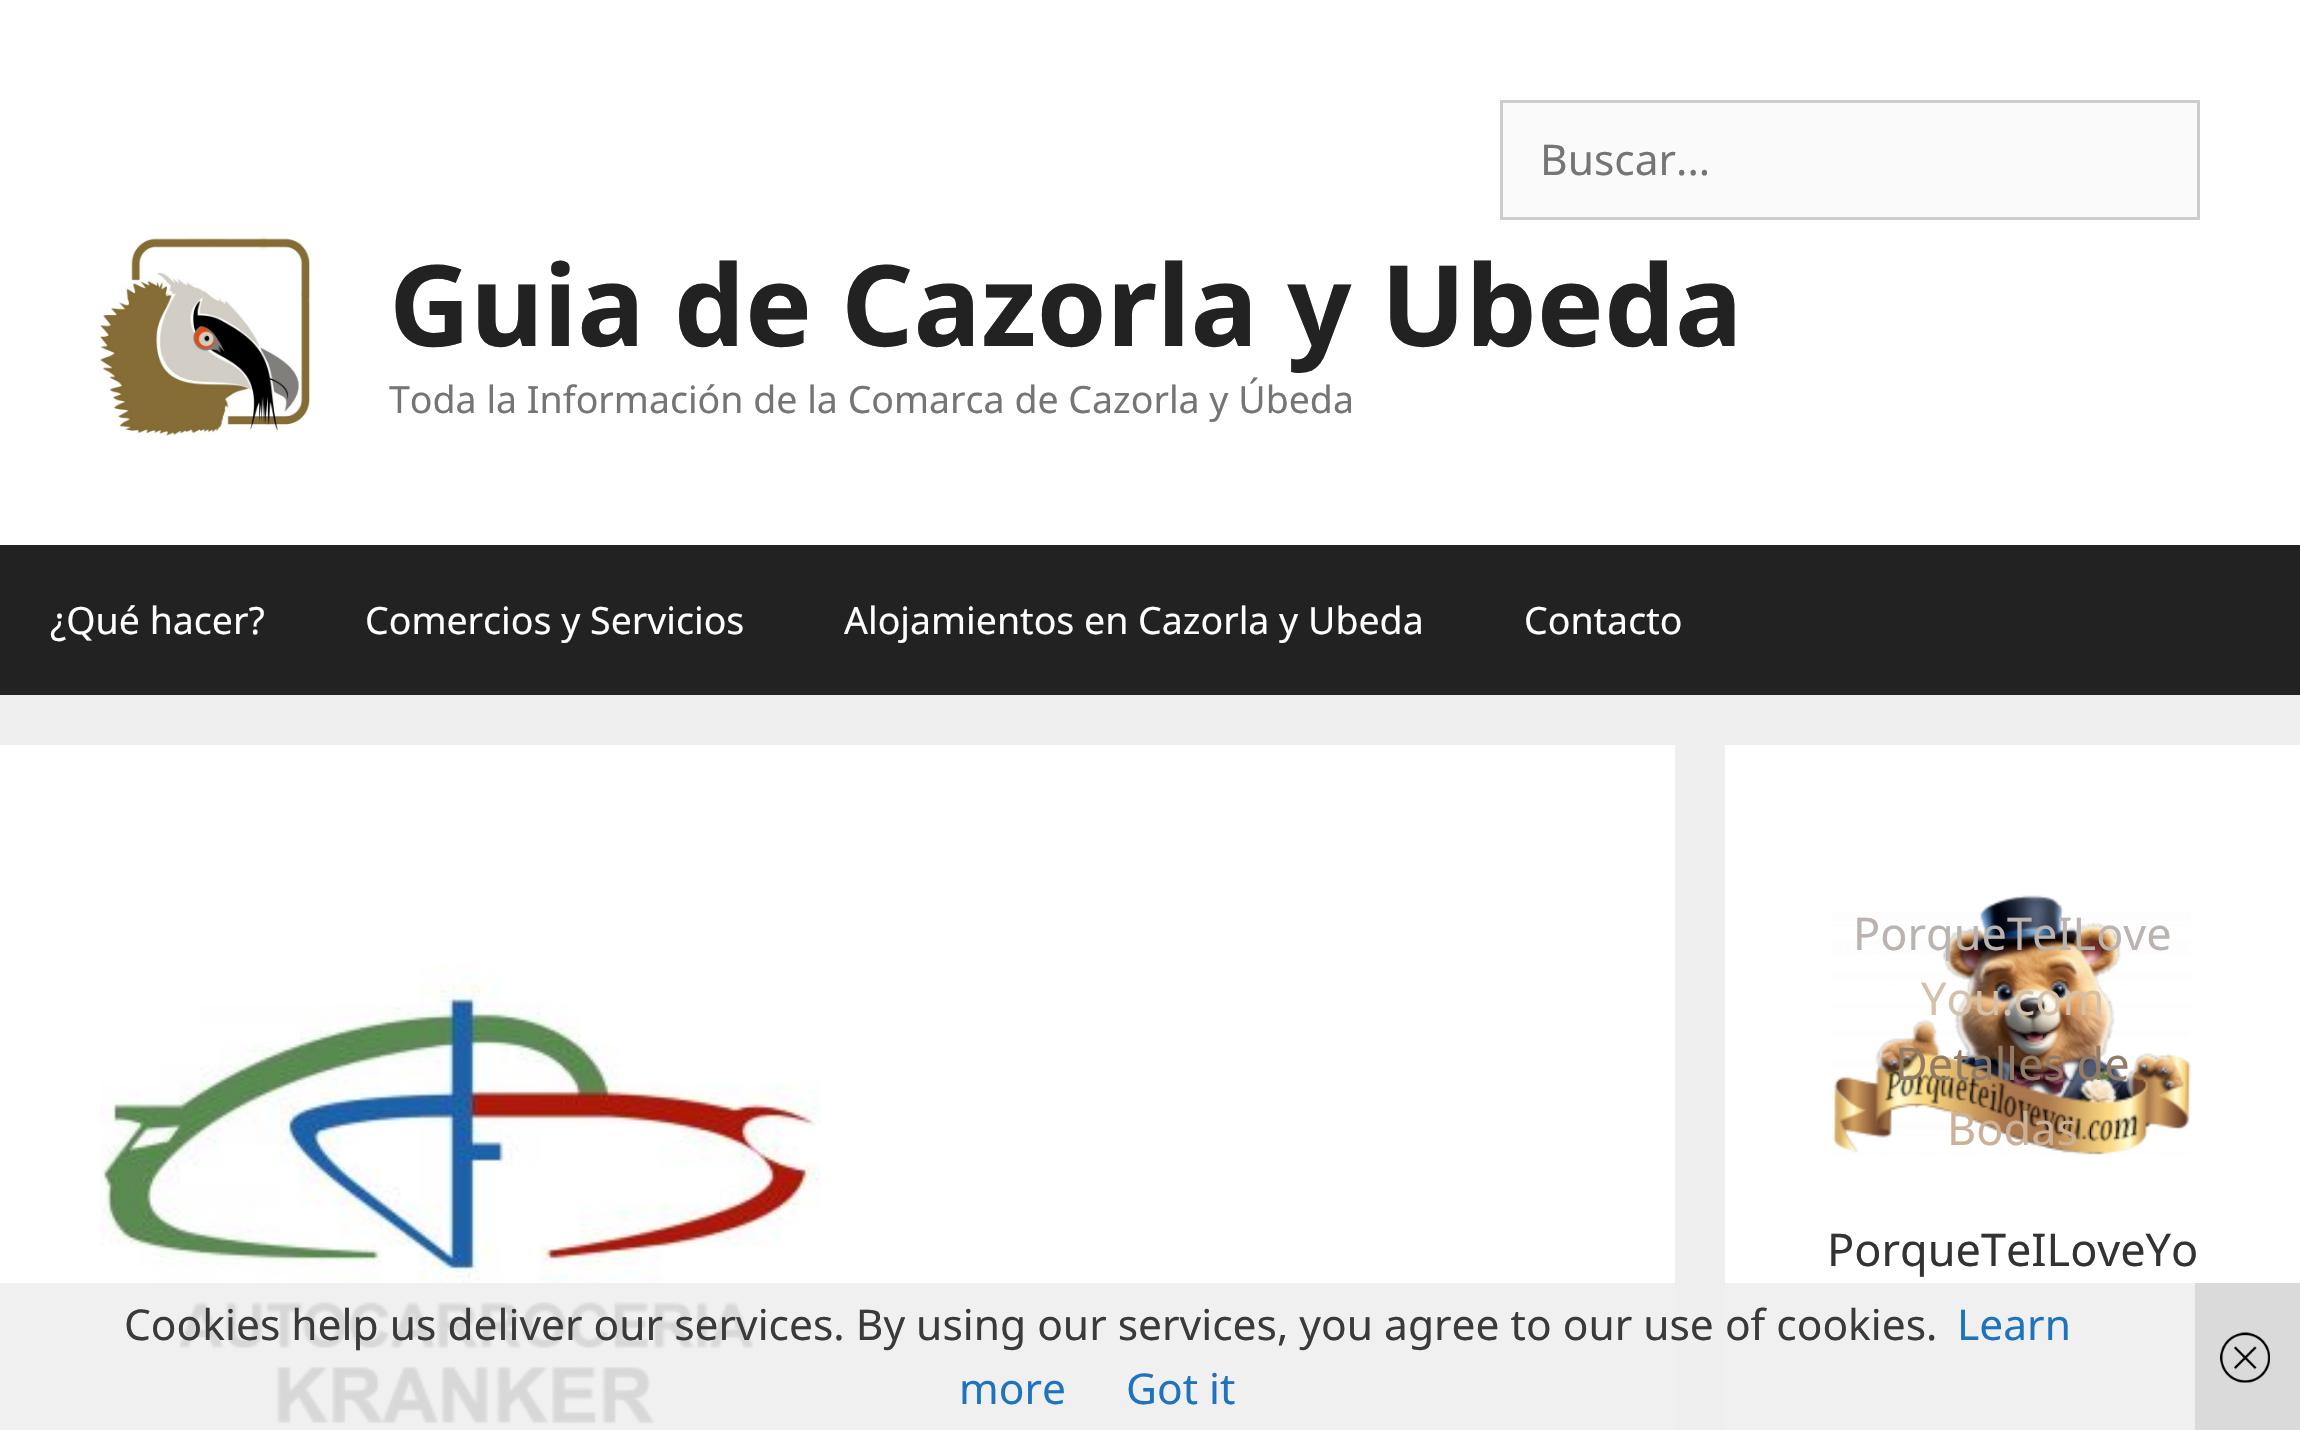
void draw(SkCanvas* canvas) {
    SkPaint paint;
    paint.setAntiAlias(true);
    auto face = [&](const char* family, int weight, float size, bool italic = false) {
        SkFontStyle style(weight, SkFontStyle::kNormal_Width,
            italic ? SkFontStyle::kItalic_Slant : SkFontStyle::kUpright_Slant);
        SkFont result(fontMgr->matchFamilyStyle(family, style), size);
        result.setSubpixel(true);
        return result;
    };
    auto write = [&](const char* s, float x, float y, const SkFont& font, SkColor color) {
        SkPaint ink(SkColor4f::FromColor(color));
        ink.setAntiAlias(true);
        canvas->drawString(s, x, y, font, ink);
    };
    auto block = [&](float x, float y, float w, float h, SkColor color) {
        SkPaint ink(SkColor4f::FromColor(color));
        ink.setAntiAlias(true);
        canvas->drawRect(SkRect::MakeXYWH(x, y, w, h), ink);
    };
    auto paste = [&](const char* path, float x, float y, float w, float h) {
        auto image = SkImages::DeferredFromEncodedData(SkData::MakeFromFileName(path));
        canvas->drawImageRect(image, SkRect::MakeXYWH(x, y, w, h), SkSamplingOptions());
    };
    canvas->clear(SkColorSetRGB(239, 239, 239));
    block(0, 0, 2300, 545, SK_ColorWHITE);
    paint.setColor(SkColorSetRGB(250, 250, 250));
    canvas->drawRect(SkRect::MakeXYWH(1501.5f, 101.5f, 697, 117), paint);
    paint.setStyle(SkPaint::kStroke_Style);
    paint.setStrokeWidth(3);
    paint.setColor(SkColorSetRGB(204, 204, 204));
    canvas->drawRect(SkRect::MakeXYWH(1501.5f, 101.5f, 697, 117), paint);
    auto kFont1 = face("Noto Sans", 400, 42.5f);
    write("Buscar...", 1540, 175, kFont1, SkColorSetRGB(117, 117, 117));
    paste("pic1.png", 100, 236, 211, 202);
    auto kFont2 = face("Noto Sans", 700, 112.5f);
    write("Guia de Cazorla y Ubeda", 389, 346, kFont2, SkColorSetRGB(34, 34, 34));
    auto kFont3 = face("Noto Sans", 400, 37.5f);
    write("Toda la Información de la Comarca de Cazorla y Úbeda", 389, 413, kFont3, SkColorSetRGB(117, 117, 117));
    block(0, 545, 2300, 150, SkColorSetRGB(34, 34, 34));
    write("¿Qué hacer?", 50, 634, kFont3, SK_ColorWHITE);
    write("Comercios y Servicios", 365, 634, kFont3, SK_ColorWHITE);
    write("Alojamientos en Cazorla y Ubeda", 844, 634, kFont3, SK_ColorWHITE);
    write("Contacto", 1524, 634, kFont3, SK_ColorWHITE);
    block(0, 745, 1675, 685, SK_ColorWHITE);
    paste("pic2.png", 100, 964, 721, 461);
    block(1725, 745, 575, 685, SK_ColorWHITE);
    paste("pic3.png", 1832, 895, 359, 260);
    auto kFont4 = face("Noto Sans", 400, 45);
    write("PorqueTeILove", 1853, 950, kFont4, SkColorSetRGB(186, 179, 175));
    write("You.com", 1921, 1015, kFont4, SkColorSetRGB(213, 192, 168));
    write("Detalles de", 1895, 1080, kFont4, SkColorSetRGB(146, 124, 101));
    write("Bodas", 1947, 1145, kFont4, SkColorSetRGB(202, 177, 151));
    write("PorqueTeILoveYo", 1827, 1266, kFont4, SkColorSetRGB(51, 51, 51));
    block(0, 1283, 2195, 147, SkColorSetARGB(230, 238, 238, 238));
    write("Cookies help us deliver our services. By using our services, you agree to our use of cookies.", 124, 1340, kFont1, SkColorSetRGB(58, 58, 58));
    write("Learn", 1957, 1340, kFont1, SkColorSetRGB(30, 115, 190));
    write("more", 959, 1404, kFont1, SkColorSetRGB(30, 115, 190));
    write("Got it", 1126, 1404, kFont1, SkColorSetRGB(30, 115, 190));
    block(2195, 1283, 105, 147, SkColorSetRGB(218, 218, 218));
    paste("pic4.png", 2220, 1332, 50, 51);
}
